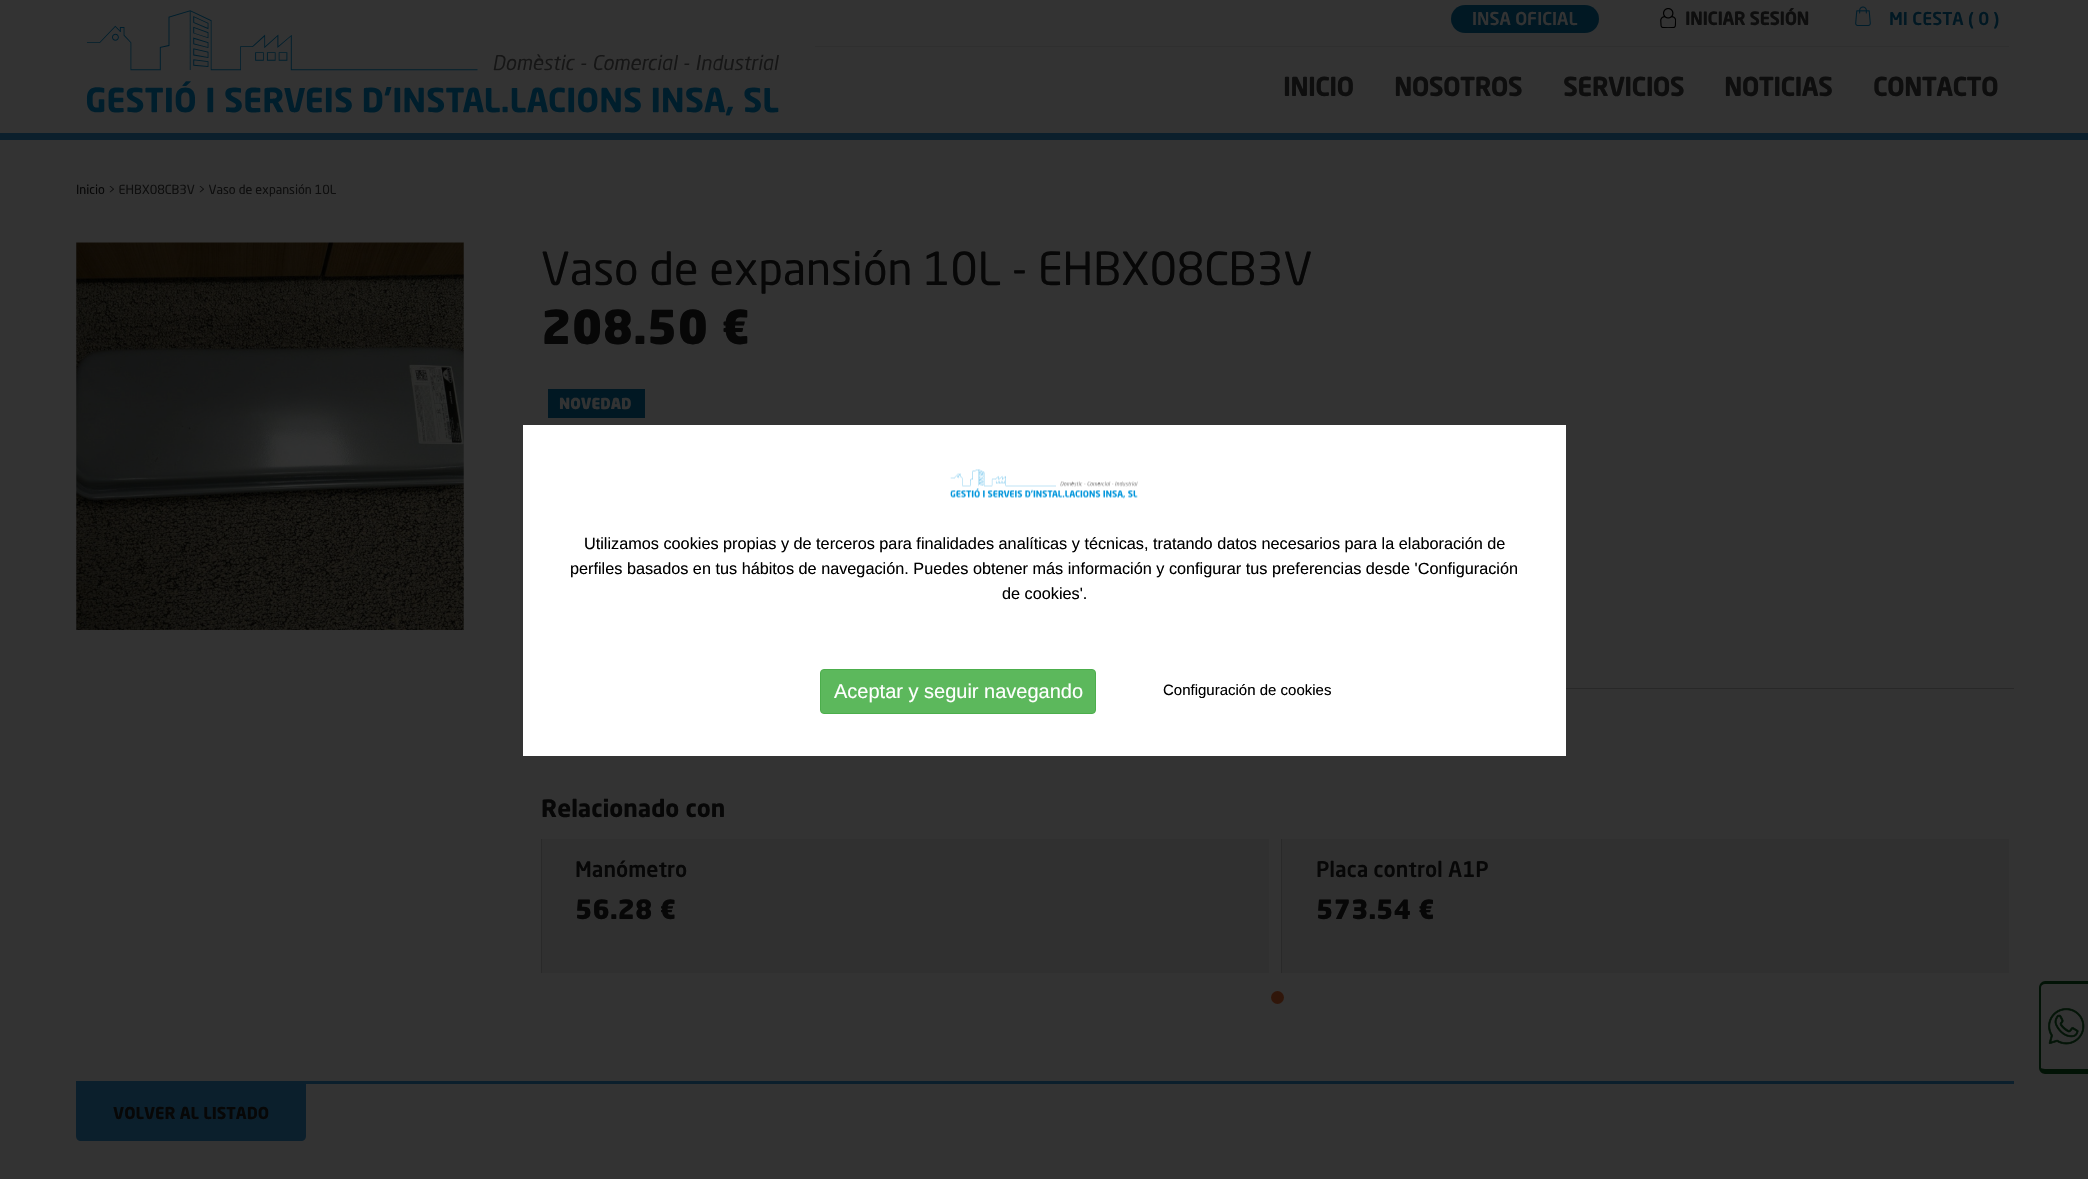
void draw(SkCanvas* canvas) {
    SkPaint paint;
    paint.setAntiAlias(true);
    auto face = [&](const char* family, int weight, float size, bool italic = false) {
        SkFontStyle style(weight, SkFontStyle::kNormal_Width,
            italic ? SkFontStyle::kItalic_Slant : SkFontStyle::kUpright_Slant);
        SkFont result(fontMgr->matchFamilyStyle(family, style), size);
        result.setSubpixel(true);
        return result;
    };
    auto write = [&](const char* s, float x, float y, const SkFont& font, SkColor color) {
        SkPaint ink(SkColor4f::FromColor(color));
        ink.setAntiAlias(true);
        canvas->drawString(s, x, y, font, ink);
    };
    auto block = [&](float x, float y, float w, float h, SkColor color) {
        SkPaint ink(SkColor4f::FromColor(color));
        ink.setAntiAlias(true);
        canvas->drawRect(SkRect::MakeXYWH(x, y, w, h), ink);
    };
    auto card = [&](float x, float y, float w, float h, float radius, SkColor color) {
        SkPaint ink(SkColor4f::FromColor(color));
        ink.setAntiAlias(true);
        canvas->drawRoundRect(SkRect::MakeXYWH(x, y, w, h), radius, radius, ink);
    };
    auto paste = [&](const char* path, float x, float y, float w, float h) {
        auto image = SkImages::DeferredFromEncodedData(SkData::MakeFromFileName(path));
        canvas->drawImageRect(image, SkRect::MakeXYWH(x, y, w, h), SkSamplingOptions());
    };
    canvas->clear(SkColorSetRGB(51, 51, 51));
    block(0, 133, 2088, 7, SkColorSetRGB(11, 31, 44));
    paste("pic1.png", 86, 10, 693, 106);
    card(1451, 5, 148, 28, 14, SkColorSetRGB(1, 24, 35));
    auto kFont1 = face("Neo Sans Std", 500, 17.5f);
    write("INSA OFICIAL", 1472, 25, kFont1, SkColorSetRGB(51, 51, 51));
    paste("pic2.png", 1660, 8, 16, 20);
    auto kFont2 = face("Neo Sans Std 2", 700, 17.5f);
    write("INICIAR SESIÓN", 1685, 25, kFont2, SkColorSetRGB(14, 14, 14));
    paste("pic3.png", 1855, 6, 16, 20);
    write("MI CESTA ( 0 )", 1889, 25, kFont1, SkColorSetRGB(1, 24, 35));
    block(815, 46, 1194, 1, SkColorSetRGB(47, 47, 47));
    auto kFont3 = face("Neo Sans Std 2", 700, 25);
    write("INICIO", 1283, 96, kFont3, SkColorSetRGB(14, 14, 14));
    write("NOSOTROS", 1394, 96, kFont3, SkColorSetRGB(14, 14, 14));
    write("SERVICIOS", 1563, 96, kFont3, SkColorSetRGB(14, 14, 14));
    write("NOTICIAS", 1724, 96, kFont3, SkColorSetRGB(14, 14, 14));
    write("CONTACTO", 1873, 96, kFont3, SkColorSetRGB(14, 14, 14));
    auto kFont4 = face("Neo Sans Std", 400, 12.5f);
    write("Inicio", 76, 194, kFont4, SkColorSetRGB(7, 7, 7));
    write("> EHBX08CB3V > Vaso de expansión 10L", 108, 194, kFont4, SkColorSetRGB(14, 14, 14));
    paste("pic4.png", 76, 242, 388, 388);
    auto kFont5 = face("Neo Sans Std", 400, 45);
    write("Vaso de expansión 10L - EHBX08CB3V", 541, 285, kFont5, SkColorSetRGB(7, 7, 7));
    auto kFont6 = face("Neo Sans Std", 900, 46.25f);
    write("208.50 €", 541, 344, kFont6, SkColorSetRGB(7, 7, 7));
    block(548, 389, 97, 29, SkColorSetRGB(1, 24, 35));
    auto kFont7 = face("Neo Sans Std", 900, 15);
    write("NOVEDAD", 559, 409, kFont7, SkColorSetRGB(51, 51, 51));
    block(1566, 688, 448, 1, SkColorSetRGB(40, 40, 40));
    auto kFont8 = face("Neo Sans Std", 700, 23.75f);
    write("Relacionado con", 541, 817, kFont8, SkColorSetRGB(7, 7, 7));
    block(542, 839, 727, 134, SkColorSetRGB(48, 48, 48));
    block(541, 839, 1, 134, SkColorSetRGB(41, 41, 41));
    auto kFont9 = face("Neo Sans Std", 500, 21.25f);
    write("Manómetro", 575, 877, kFont9, SkColorSetRGB(7, 7, 7));
    auto kFont10 = face("Neo Sans Std", 900, 26.25f);
    write("56.28 €", 575, 919, kFont10, SkColorSetRGB(7, 7, 7));
    block(1282, 839, 727, 134, SkColorSetRGB(48, 48, 48));
    block(1281, 839, 1, 134, SkColorSetRGB(41, 41, 41));
    write("Placa control A1P", 1316, 877, kFont9, SkColorSetRGB(7, 7, 7));
    write("573.54 €", 1316, 919, kFont10, SkColorSetRGB(7, 7, 7));
    paint.setColor(SkColorSetRGB(48, 22, 10));
    canvas->drawCircle(1277.5f, 997.5f, 6.5f, paint);
    block(76, 1081, 1938, 3, SkColorSetRGB(11, 31, 44));
    paint.setColor(SkColorSetRGB(11, 31, 44));
    canvas->drawPath(SkPathBuilder().moveTo(76, 1084).lineTo(306, 1084).lineTo(306, 1136).cubicTo(306, 1139, 304, 1141, 301, 1141).lineTo(81, 1141).cubicTo(78, 1141, 76, 1139, 76, 1136).close().detach(), paint);
    auto kFont11 = face("Neo Sans Std", 700, 16.25f);
    write("VOLVER AL LISTADO", 113, 1119, kFont11, SkColorSetRGB(7, 7, 7));
    block(523, 425, 1043, 331, SK_ColorWHITE);
    paste("pic5.png", 950, 469, 188, 30);
    auto kFont12 = face("Liberation Sans", 400, 16.25f);
    write("Utilizamos cookies propias y de terceros para finalidades analíticas y técnicas, tratando datos necesarios para la elaboración de", 584, 549, kFont12, SK_ColorBLACK);
    write("perfiles basados en tus hábitos de navegación. Puedes obtener más información y configurar tus preferencias desde 'Configuración", 570, 574, kFont12, SK_ColorBLACK);
    write("de cookies'.", 1002, 599, kFont12, SK_ColorBLACK);
    paint.setColor(SkColorSetRGB(92, 184, 92));
    canvas->drawRoundRect(SkRect::MakeXYWH(820.5f, 669.5f, 275, 44), 3.5f, 3.5f, paint);
    paint.setStyle(SkPaint::kStroke_Style);
    paint.setStrokeWidth(1);
    paint.setColor(SkColorSetRGB(76, 174, 76));
    canvas->drawRoundRect(SkRect::MakeXYWH(820.5f, 669.5f, 275, 44), 3.5f, 3.5f, paint);
    auto kFont13 = face("Liberation Sans", 400, 20);
    write("Aceptar y seguir navegando", 834, 698, kFont13, SK_ColorWHITE);
    auto kFont14 = face("Liberation Sans", 400, 15);
    write("Configuración de cookies", 1163, 695, kFont14, SK_ColorBLACK);
    paint.setStyle(SkPaint::kFill_Style);
    paint.setColor(SkColorSetRGB(2, 19, 6));
    canvas->drawPath(SkPathBuilder(SkPathFillType::kEvenOdd).moveTo(2045, 981).lineTo(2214, 981).lineTo(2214, 1074).lineTo(2045, 1074).cubicTo(2042, 1074, 2039, 1071, 2039, 1068).lineTo(2039, 988).cubicTo(2039, 984, 2042, 981, 2045, 981).close().moveTo(2045, 984).lineTo(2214, 984).lineTo(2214, 1069).lineTo(2045, 1069).cubicTo(2043, 1069, 2041, 1068, 2041, 1068).lineTo(2041, 988).cubicTo(2041, 985, 2043, 984, 2045, 984).close().detach(), paint);
    paste("pic6.png", 2048, 1008, 37, 37);
}
